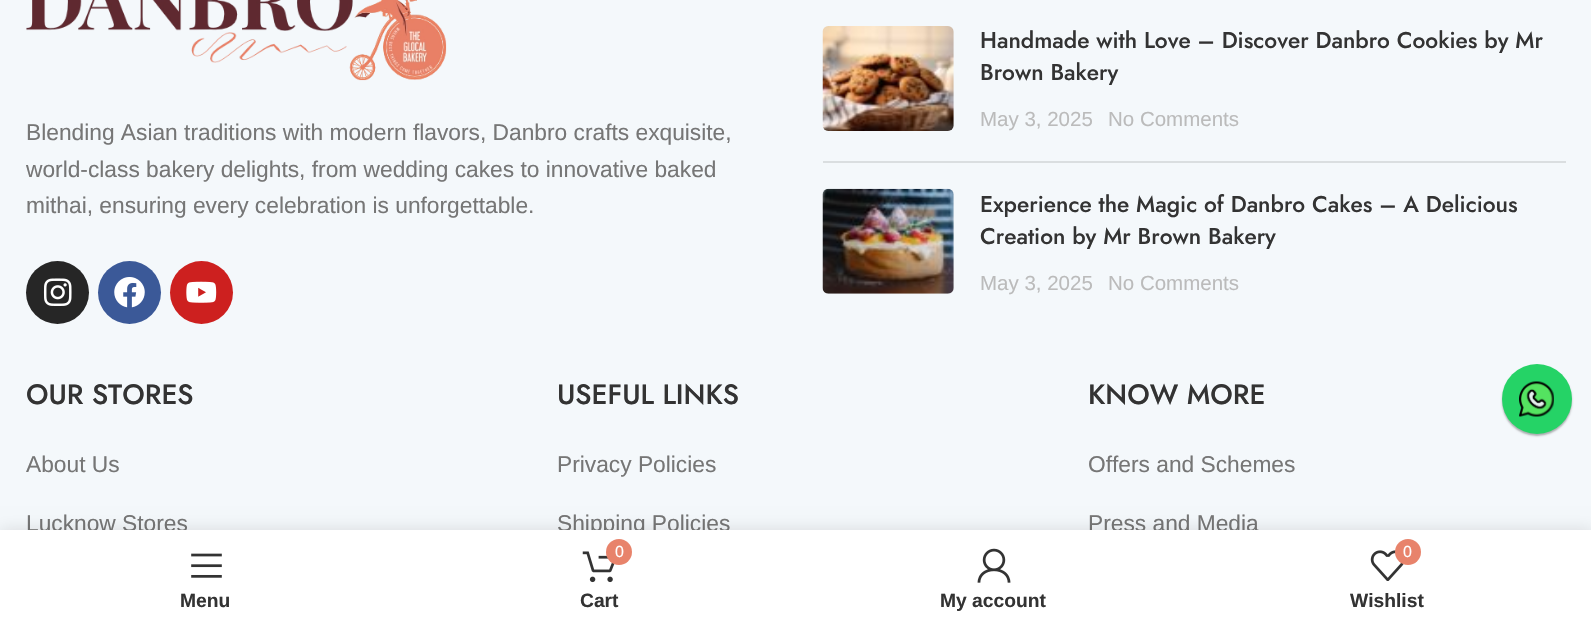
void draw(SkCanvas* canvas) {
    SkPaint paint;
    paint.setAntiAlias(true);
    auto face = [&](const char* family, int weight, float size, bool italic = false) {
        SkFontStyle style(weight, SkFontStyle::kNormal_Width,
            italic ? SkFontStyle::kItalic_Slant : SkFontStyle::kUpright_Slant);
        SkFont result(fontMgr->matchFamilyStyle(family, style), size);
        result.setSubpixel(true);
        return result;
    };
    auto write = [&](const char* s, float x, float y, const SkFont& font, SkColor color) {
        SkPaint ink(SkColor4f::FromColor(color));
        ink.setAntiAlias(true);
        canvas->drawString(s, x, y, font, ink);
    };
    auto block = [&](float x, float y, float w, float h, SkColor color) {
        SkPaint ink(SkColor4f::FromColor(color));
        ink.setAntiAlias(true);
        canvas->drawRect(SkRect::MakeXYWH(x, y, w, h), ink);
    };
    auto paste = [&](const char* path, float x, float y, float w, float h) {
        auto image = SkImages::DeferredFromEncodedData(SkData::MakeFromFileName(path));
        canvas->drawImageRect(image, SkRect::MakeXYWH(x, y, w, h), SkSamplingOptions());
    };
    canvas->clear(SkColorSetRGB(244, 248, 251));
    paste("pic1.png", 26, 0, 421, 81);
    auto kFont1 = face("Liberation Sans", 400, 22.75f);
    write("Blending Asian traditions with modern flavors, Danbro crafts exquisite,", 26, 140, kFont1, SkColorSetRGB(118, 118, 118));
    write("world-class bakery delights, from wedding cakes to innovative baked", 26, 177, kFont1, SkColorSetRGB(118, 118, 118));
    write("mithai, ensuring every celebration is unforgettable.", 26, 213, kFont1, SkColorSetRGB(118, 118, 118));
    paint.setColor(SkColorSetRGB(38, 38, 38));
    canvas->drawCircle(57.5f, 292.5f, 31.5f, paint);
    paste("pic2.png", 43, 278, 29, 28);
    paint.setColor(SkColorSetRGB(59, 89, 152));
    canvas->drawCircle(129.5f, 292.5f, 31.5f, paint);
    paste("pic3.png", 114, 277, 31, 31);
    paint.setColor(SkColorSetRGB(205, 32, 31));
    canvas->drawCircle(201.5f, 292.5f, 31.5f, paint);
    paste("pic4.png", 186, 281, 31, 22);
    block(823, 161, 743, 2, SkColorSetRGB(218, 222, 224));
    paste("pic5.png", 822, 26, 132, 105);
    auto kFont2 = face("Jost", 500, 22.75f);
    write("Handmade with Love – Discover Danbro Cookies by Mr", 980, 48, kFont2, SkColorSetRGB(51, 51, 51));
    write("Brown Bakery", 980, 80, kFont2, SkColorSetRGB(51, 51, 51));
    auto kFont3 = face("Liberation Sans", 400, 20.5f);
    write("May 3, 2025", 980, 126, kFont3, SkColorSetRGB(187, 187, 187));
    write("No Comments", 1108, 126, kFont3, SkColorSetRGB(187, 187, 187));
    paste("pic6.png", 822, 188, 132, 106);
    write("Experience the Magic of Danbro Cakes – A Delicious", 980, 212, kFont2, SkColorSetRGB(51, 51, 51));
    write("Creation by Mr Brown Bakery", 980, 244, kFont2, SkColorSetRGB(51, 51, 51));
    write("May 3, 2025", 980, 290, kFont3, SkColorSetRGB(187, 187, 187));
    write("No Comments", 1108, 290, kFont3, SkColorSetRGB(187, 187, 187));
    auto kFont4 = face("Jost", 500, 28);
    write("OUR STORES", 26, 404, kFont4, SkColorSetRGB(51, 51, 51));
    write("About Us", 26, 472, kFont1, SkColorSetRGB(118, 118, 118));
    write("Lucknow Stores", 26, 531, kFont1, SkColorSetRGB(118, 118, 118));
    write("USEFUL LINKS", 557, 404, kFont4, SkColorSetRGB(51, 51, 51));
    write("Privacy Policies", 557, 472, kFont1, SkColorSetRGB(118, 118, 118));
    write("Shipping Policies", 557, 531, kFont1, SkColorSetRGB(118, 118, 118));
    write("KNOW MORE", 1088, 404, kFont4, SkColorSetRGB(51, 51, 51));
    write("Offers and Schemes", 1088, 472, kFont1, SkColorSetRGB(118, 118, 118));
    write("Press and Media", 1088, 531, kFont1, SkColorSetRGB(118, 118, 118));
    paint.setColor(SkColorSetARGB(77, 0, 0, 0));
    paint.setMaskFilter(SkMaskFilter::MakeBlur(kNormal_SkBlurStyle, 1));
    canvas->drawRoundRect(SkRect::MakeXYWH(1502, 366, 70, 70), 35, 35, paint);
    paint.setMaskFilter(nullptr);
    paint.setColor(SkColorSetRGB(37, 211, 102));
    canvas->drawCircle(1537, 399, 35, paint);
    paste("pic7.png", 1519, 381, 35, 36);
    paint.setColor(SkColorSetARGB(31, 0, 0, 0));
    paint.setMaskFilter(SkMaskFilter::MakeBlur(kNormal_SkBlurStyle, 8));
    canvas->drawRect(SkRect::MakeXYWH(0, 530, 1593, 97), paint);
    paint.setMaskFilter(nullptr);
    block(0, 530, 1591, 96, SK_ColorWHITE);
    paste("pic8.png", 191, 553, 31, 25);
    auto kFont5 = face("Liberation Sans", 700, 19.25f);
    write("Menu", 180, 607, kFont5, SkColorSetRGB(51, 51, 51));
    paste("pic9.png", 582, 551, 33, 32);
    paint.setColor(SkColorSetRGB(232, 131, 107));
    canvas->drawCircle(619, 552, 13, paint);
    auto kFont6 = face("Liberation Sans", 400, 16);
    write("0", 615, 557, kFont6, SK_ColorWHITE);
    write("Cart", 580, 607, kFont5, SkColorSetRGB(51, 51, 51));
    paste("pic10.png", 977, 548, 34, 35);
    write("My account", 940, 607, kFont5, SkColorSetRGB(51, 51, 51));
    paste("pic11.png", 1370, 550, 34, 31);
    canvas->drawCircle(1408, 552, 13, paint);
    write("0", 1403, 557, kFont6, SK_ColorWHITE);
    write("Wishlist", 1350, 607, kFont5, SkColorSetRGB(51, 51, 51));
}
